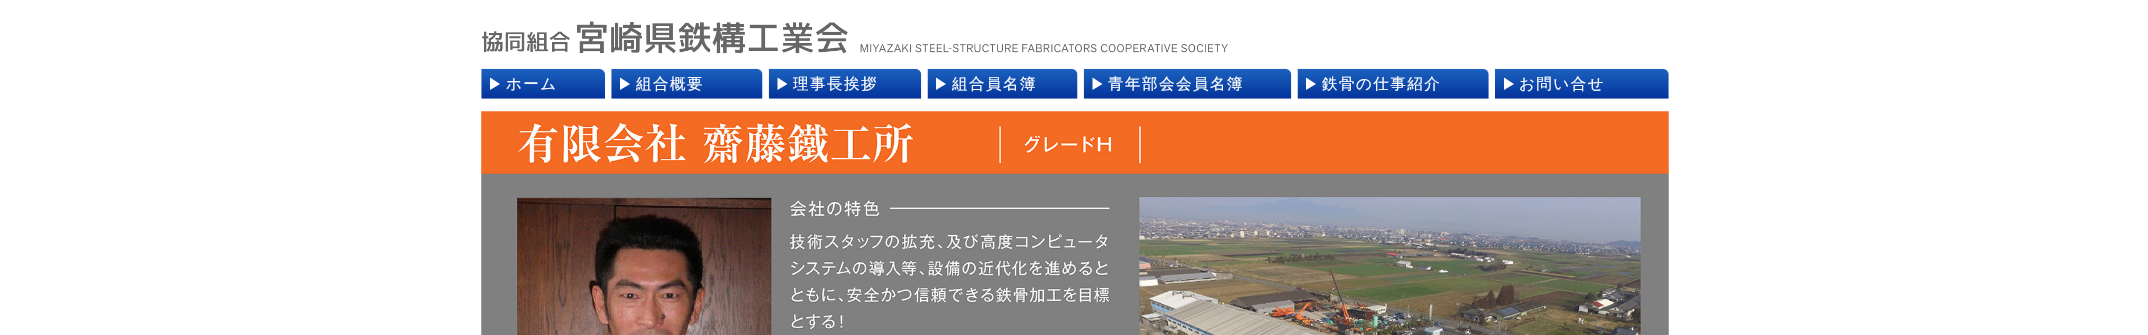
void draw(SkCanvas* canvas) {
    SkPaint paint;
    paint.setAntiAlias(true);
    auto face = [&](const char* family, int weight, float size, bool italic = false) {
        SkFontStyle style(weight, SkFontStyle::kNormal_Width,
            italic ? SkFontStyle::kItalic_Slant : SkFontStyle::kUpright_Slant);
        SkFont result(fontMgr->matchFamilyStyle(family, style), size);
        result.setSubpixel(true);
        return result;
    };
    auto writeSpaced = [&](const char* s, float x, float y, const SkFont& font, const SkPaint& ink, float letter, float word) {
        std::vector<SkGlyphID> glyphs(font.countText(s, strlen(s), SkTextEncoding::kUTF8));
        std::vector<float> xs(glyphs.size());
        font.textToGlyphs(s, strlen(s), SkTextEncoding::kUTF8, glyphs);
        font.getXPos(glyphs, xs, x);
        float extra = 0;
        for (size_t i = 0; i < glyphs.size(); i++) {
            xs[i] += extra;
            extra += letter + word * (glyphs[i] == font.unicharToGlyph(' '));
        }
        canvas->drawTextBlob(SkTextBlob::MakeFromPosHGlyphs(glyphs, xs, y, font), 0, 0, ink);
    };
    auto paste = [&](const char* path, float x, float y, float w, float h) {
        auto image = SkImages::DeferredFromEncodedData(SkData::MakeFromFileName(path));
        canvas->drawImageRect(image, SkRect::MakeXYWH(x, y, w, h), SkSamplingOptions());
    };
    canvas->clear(SK_ColorWHITE);
    paste("pic1.png", 482, 21, 746, 33);
    paste("pic2.png", 481, 68, 124, 31);
    paint.setColor(SK_ColorWHITE);
    canvas->drawPath(SkPathBuilder().moveTo(490, 90).lineTo(490, 77.5f).lineTo(500, 84).close().detach(), paint);
    auto kFont1 = face("WenQuanYi Zen Hei", 500, 15.5f);
    writeSpaced("ホーム", 506, 89, kFont1, paint, 1.5f, 0);
    paste("pic3.png", 611, 68, 152, 31);
    canvas->drawPath(SkPathBuilder().moveTo(620, 90).lineTo(620, 77.5f).lineTo(630, 84).close().detach(), paint);
    writeSpaced("組合概要", 636, 89, kFont1, paint, 1.5f, 0);
    paste("pic4.png", 768, 68, 154, 31);
    canvas->drawPath(SkPathBuilder().moveTo(777.5f, 90).lineTo(777.5f, 77.5f).lineTo(787.5f, 84).close().detach(), paint);
    writeSpaced("理事長挨拶", 793, 89, kFont1, paint, 1.5f, 0);
    paste("pic5.png", 927, 68, 151, 31);
    canvas->drawPath(SkPathBuilder().moveTo(936, 90).lineTo(936, 77.5f).lineTo(946, 84).close().detach(), paint);
    writeSpaced("組合員名簿", 952, 89, kFont1, paint, 1.5f, 0);
    paste("pic6.png", 1083, 68, 209, 31);
    canvas->drawPath(SkPathBuilder().moveTo(1092.5f, 90).lineTo(1092.5f, 77.5f).lineTo(1102.5f, 84).close().detach(), paint);
    writeSpaced("青年部会会員名簿", 1108, 89, kFont1, paint, 1.5f, 0);
    paste("pic7.png", 1297, 68, 192, 31);
    canvas->drawPath(SkPathBuilder().moveTo(1306, 90).lineTo(1306, 77.5f).lineTo(1316, 84).close().detach(), paint);
    writeSpaced("鉄骨の仕事紹介", 1322, 89, kFont1, paint, 1.5f, 0);
    paste("pic8.png", 1495, 68, 174, 31);
    canvas->drawPath(SkPathBuilder().moveTo(1504, 90).lineTo(1504, 77.5f).lineTo(1514, 84).close().detach(), paint);
    writeSpaced("お問い合せ", 1519, 89, kFont1, paint, 1.5f, 0);
    paste("pic9.png", 481, 111, 1188, 224);
}
